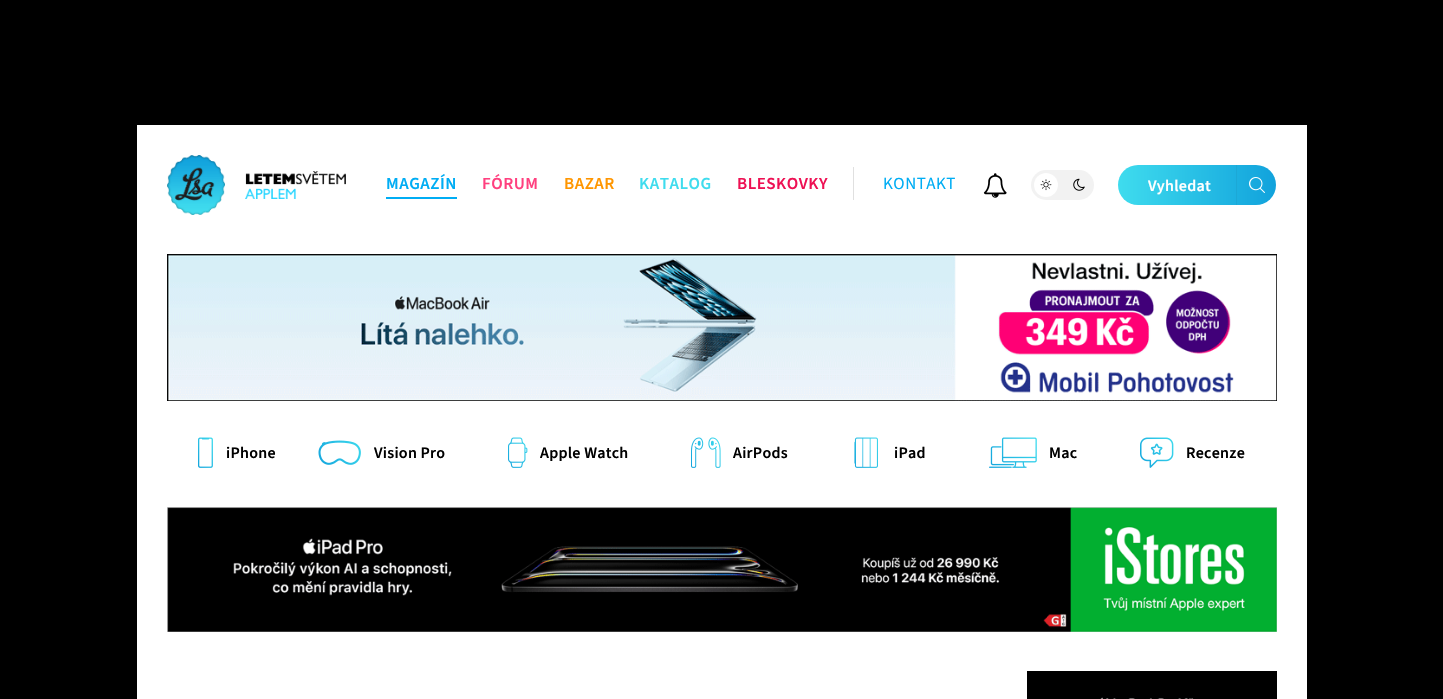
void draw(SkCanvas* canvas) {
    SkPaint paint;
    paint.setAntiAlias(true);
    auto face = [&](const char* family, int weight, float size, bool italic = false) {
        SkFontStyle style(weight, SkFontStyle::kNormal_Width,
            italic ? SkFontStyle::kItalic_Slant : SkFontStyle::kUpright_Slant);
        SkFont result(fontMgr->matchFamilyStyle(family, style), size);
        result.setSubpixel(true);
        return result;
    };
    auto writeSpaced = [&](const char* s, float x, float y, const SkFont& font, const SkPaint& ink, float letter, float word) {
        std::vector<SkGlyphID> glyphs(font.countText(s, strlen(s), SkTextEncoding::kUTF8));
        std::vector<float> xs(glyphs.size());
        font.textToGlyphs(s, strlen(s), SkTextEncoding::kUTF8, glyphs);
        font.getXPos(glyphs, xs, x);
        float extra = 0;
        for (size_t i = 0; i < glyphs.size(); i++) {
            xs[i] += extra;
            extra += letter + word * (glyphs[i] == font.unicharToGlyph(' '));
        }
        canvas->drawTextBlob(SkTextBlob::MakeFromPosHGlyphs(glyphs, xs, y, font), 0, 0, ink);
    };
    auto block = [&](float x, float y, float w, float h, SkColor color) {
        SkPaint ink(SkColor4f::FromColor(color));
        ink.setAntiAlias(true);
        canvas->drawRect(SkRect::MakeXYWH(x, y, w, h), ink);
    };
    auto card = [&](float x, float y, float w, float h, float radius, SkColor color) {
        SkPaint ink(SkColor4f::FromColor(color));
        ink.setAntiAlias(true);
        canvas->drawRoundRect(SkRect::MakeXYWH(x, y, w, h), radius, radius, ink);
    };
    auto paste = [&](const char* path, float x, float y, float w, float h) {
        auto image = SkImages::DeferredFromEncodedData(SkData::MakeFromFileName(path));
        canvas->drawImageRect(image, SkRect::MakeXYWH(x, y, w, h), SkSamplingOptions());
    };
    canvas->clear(SK_ColorBLACK);
    block(137, 125, 1170, 574, SK_ColorWHITE);
    paste("pic1.png", 167, 155, 58, 60);
    paste("pic2.png", 245, 171, 101, 28);
    block(386, 197, 71, 2, SkColorSetRGB(0, 173, 244));
    auto kFont1 = face("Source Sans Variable", 600, 17);
    paint.setColor(SkColorSetRGB(0, 173, 244));
    writeSpaced("MAGAZÍN", 386, 189, kFont1, paint, 0.5f, 0);
    paint.setColor(SkColorSetRGB(255, 64, 127));
    writeSpaced("FÓRUM", 482, 189, kFont1, paint, 0.5f, 0);
    paint.setColor(SkColorSetRGB(255, 150, 0));
    writeSpaced("BAZAR", 564, 189, kFont1, paint, 0.5f, 0);
    paint.setColor(SkColorSetRGB(63, 220, 238));
    writeSpaced("KATALOG", 639, 189, kFont1, paint, 0.5f, 0);
    paint.setColor(SkColorSetRGB(238, 17, 84));
    writeSpaced("BLESKOVKY", 737, 189, kFont1, paint, 0.5f, 0);
    block(853, 167, 1, 33, SkColorSetRGB(224, 224, 224));
    auto kFont2 = face("Source Sans Variable", 400, 17);
    paint.setColor(SkColorSetRGB(0, 173, 244));
    writeSpaced("KONTAKT", 883, 189, kFont2, paint, 0.5f, 0);
    paste("pic3.png", 983, 173, 24, 25);
    card(1031, 170, 63, 30, 15, SkColorSetRGB(242, 242, 242));
    paint.setColor(SK_ColorWHITE);
    canvas->drawCircle(1046, 185, 12, paint);
    paste("pic4.png", 1073, 178, 12, 13);
    paste("pic5.png", 1040, 179, 12, 12);
    {
        const SkColor colors[] = {SkColorSetRGB(63, 220, 238), SkColorSetRGB(17, 162, 220)};
        const float stops[] = {0, 1};
        const SkPoint ends[] = {{1118, 185}, {1276, 185}};
        paint.setShader(SkGradientShader::MakeLinear(ends, colors, stops, 2, SkTileMode::kClamp));
        paint.setAlpha(255);
    }
    canvas->drawRoundRect(SkRect::MakeXYWH(1118, 165, 158, 40), 20, 20, paint);
    auto kFont3 = face("Source Sans Variable", 600, 16);
    paint.setShader(nullptr);
    paint.setColor(SK_ColorWHITE);
    writeSpaced("Vyhledat", 1148, 191, kFont3, paint, 0.25f, 0);
    block(1236, 165, 1, 40, SkColorSetRGB(28, 168, 214));
    paste("pic6.png", 1249, 177, 16, 16);
    paste("pic7.png", 167, 254, 1110, 147);
    paste("pic8.png", 198, 437, 15, 31);
    paint.setColor(SK_ColorBLACK);
    writeSpaced("iPhone", 226, 458, kFont3, paint, 0.25f, 0);
    paste("pic9.png", 318, 440, 43, 25);
    writeSpaced("Vision Pro", 374, 458, kFont3, paint, 0.25f, 0);
    paste("pic10.png", 508, 437, 20, 31);
    writeSpaced("Apple Watch", 540, 458, kFont3, paint, 0.25f, 0);
    paste("pic11.png", 691, 437, 30, 31);
    writeSpaced("AirPods", 733, 458, kFont3, paint, 0.25f, 0);
    paste("pic12.png", 854, 437, 24, 31);
    writeSpaced("iPad", 894, 458, kFont3, paint, 0.25f, 0);
    paste("pic13.png", 989, 437, 48, 31);
    writeSpaced("Mac", 1049, 458, kFont3, paint, 0.25f, 0);
    paste("pic14.png", 1140, 437, 34, 31);
    writeSpaced("Recenze", 1186, 458, kFont3, paint, 0.25f, 0);
    paste("pic15.png", 167, 507, 1110, 125);
    paste("pic16.png", 1027, 671, 250, 28);
}
